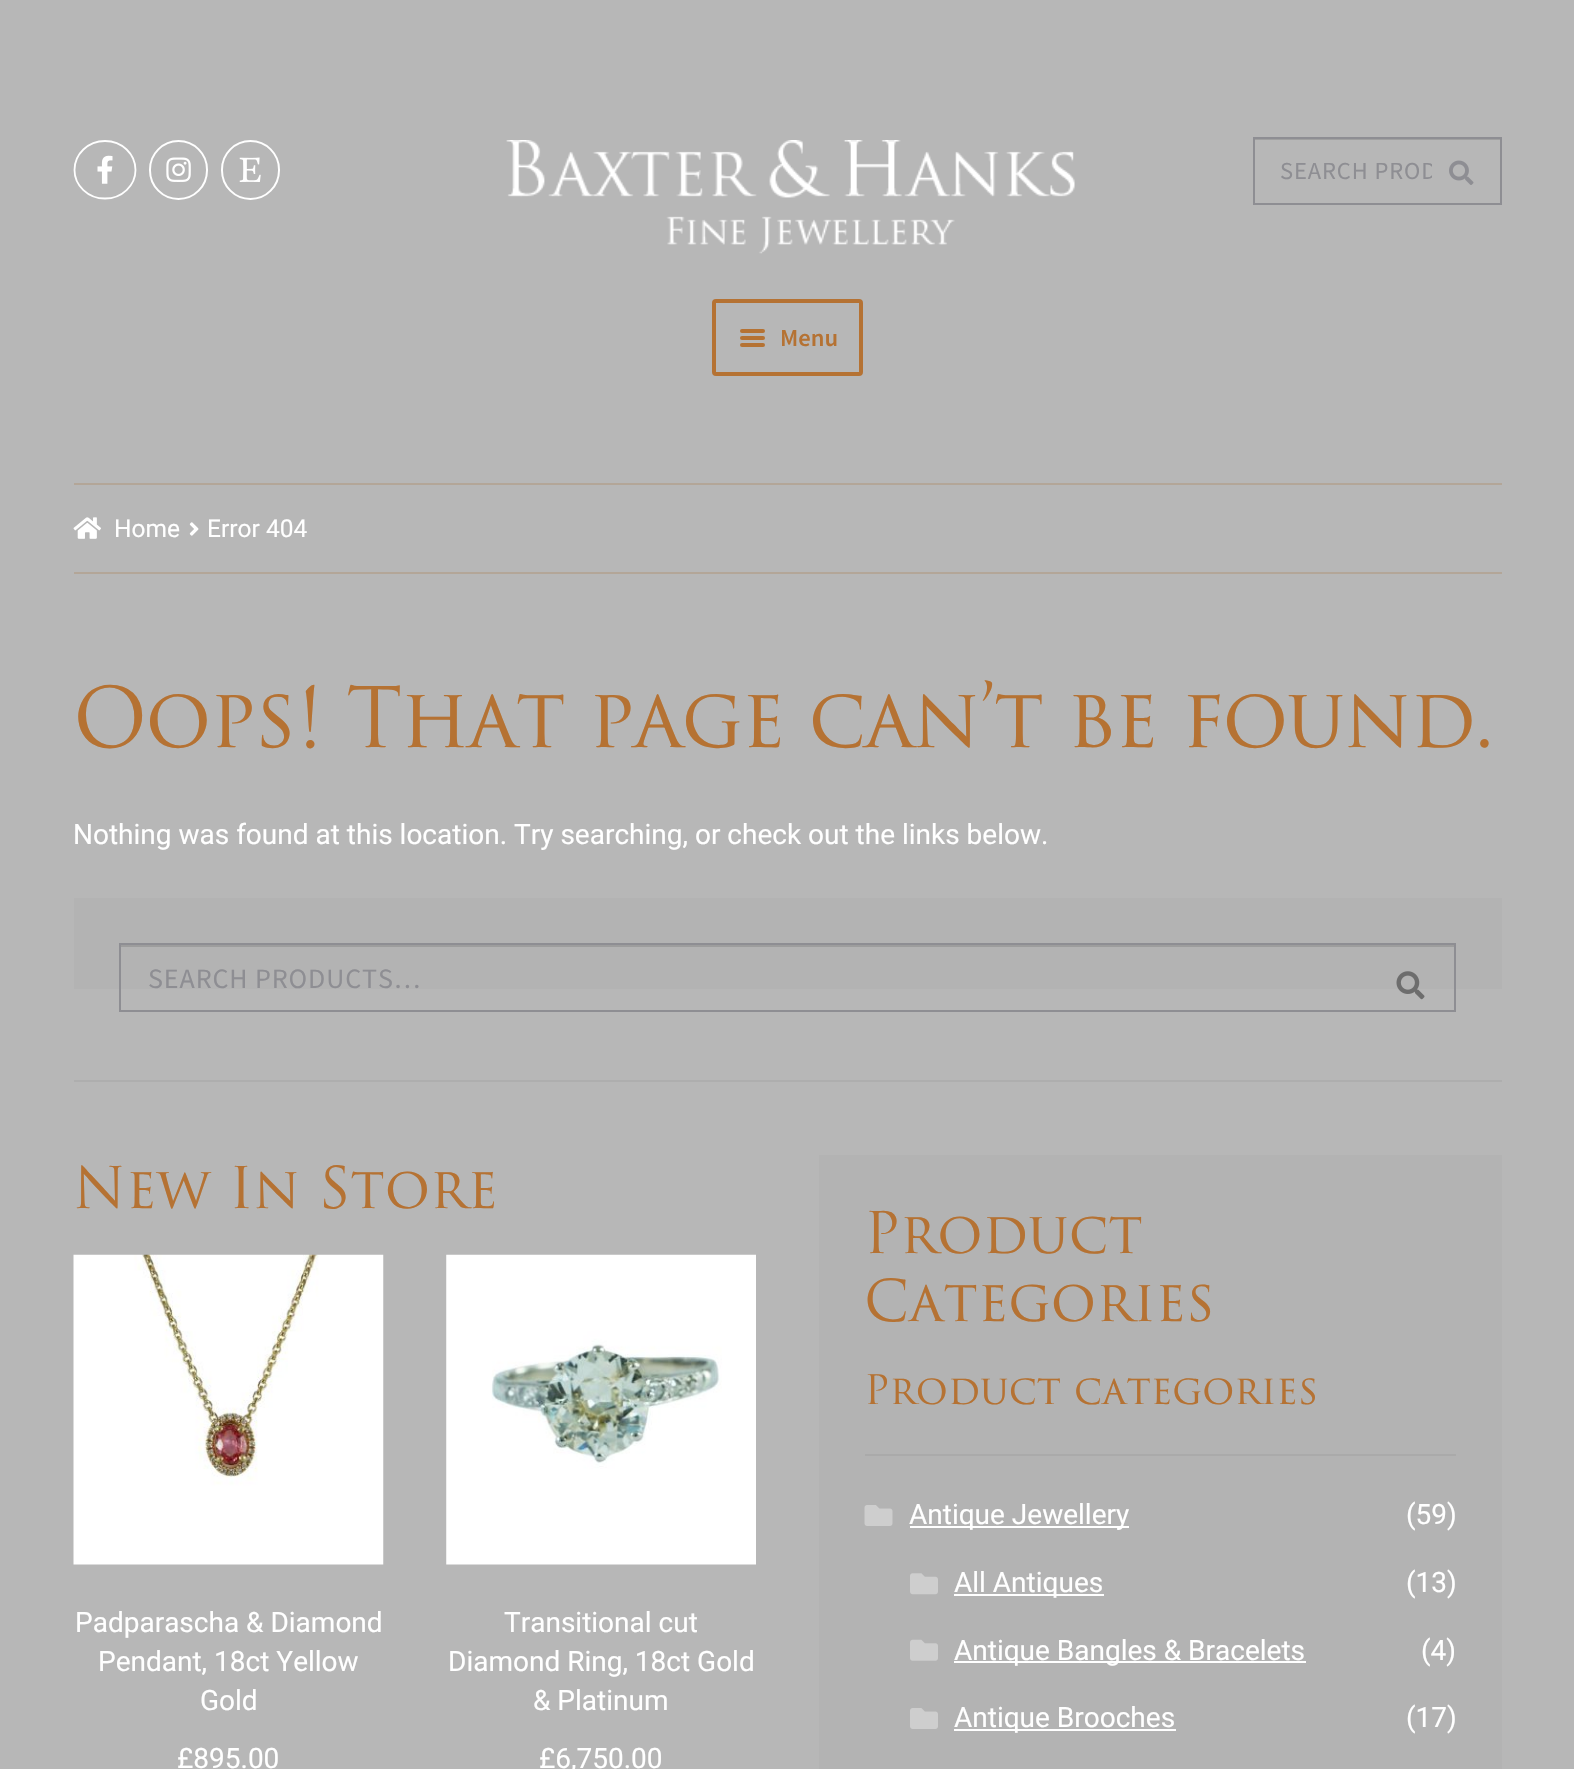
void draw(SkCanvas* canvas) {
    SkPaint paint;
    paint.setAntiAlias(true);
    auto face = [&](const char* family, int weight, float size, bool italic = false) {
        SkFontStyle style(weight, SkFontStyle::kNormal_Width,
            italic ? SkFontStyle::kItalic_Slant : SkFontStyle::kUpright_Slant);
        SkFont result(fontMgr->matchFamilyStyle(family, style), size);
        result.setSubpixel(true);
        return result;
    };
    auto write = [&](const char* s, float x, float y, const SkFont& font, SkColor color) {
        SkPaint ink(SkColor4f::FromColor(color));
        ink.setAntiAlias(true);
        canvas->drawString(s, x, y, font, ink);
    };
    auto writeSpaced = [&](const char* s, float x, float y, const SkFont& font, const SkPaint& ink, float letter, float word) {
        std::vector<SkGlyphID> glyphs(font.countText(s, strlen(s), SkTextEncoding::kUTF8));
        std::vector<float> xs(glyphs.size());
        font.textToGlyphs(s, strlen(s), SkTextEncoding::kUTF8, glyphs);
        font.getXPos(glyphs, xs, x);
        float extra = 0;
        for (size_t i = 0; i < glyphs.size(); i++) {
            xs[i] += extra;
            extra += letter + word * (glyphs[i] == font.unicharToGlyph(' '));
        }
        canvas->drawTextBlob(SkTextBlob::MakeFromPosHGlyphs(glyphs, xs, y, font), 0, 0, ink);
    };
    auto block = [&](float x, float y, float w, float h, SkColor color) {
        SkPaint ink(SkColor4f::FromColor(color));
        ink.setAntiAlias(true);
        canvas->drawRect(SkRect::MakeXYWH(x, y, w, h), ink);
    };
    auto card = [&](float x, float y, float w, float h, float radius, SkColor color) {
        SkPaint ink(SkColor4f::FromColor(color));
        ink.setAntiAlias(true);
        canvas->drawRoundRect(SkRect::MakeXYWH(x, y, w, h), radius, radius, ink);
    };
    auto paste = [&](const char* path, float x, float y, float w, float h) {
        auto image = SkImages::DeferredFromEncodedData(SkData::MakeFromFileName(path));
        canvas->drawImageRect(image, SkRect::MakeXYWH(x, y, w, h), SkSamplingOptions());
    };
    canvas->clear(SkColorSetRGB(183, 183, 183));
    paint.setStyle(SkPaint::kStroke_Style);
    paint.setStrokeWidth(1.8f);
    paint.setColor(SK_ColorWHITE);
    canvas->drawPath(SkPathBuilder().moveTo(105, 141).cubicTo(122, 141, 135.5f, 154, 135.5f, 170).cubicTo(135.5f, 185.5f, 122, 198.5f, 105, 198.5f).cubicTo(88, 198.5f, 74.5f, 185.5f, 74.5f, 170).cubicTo(74.5f, 154, 88, 141, 105, 141).close().detach(), paint);
    paste("pic1.png", 97, 155, 16, 29);
    paint.setStrokeWidth(2);
    canvas->drawRoundRect(SkRect::MakeXYWH(150, 141, 57, 58), 28.5f, 28.5f, paint);
    paste("pic2.png", 166, 157, 25, 25);
    canvas->drawRoundRect(SkRect::MakeXYWH(222, 141, 57, 58), 28.5f, 28.5f, paint);
    paste("pic3.png", 239, 157, 22, 25);
    paste("pic4.png", 506, 140, 569, 114);
    block(1255, 139, 245, 1, SkColorSetRGB(160, 160, 160));
    paste("pic5.png", 1449, 160, 25, 25);
    paint.setColor(SkColorSetRGB(142, 142, 147));
    canvas->drawRect(SkRect::MakeXYWH(1254, 138, 247, 66), paint);
    canvas->save();
    canvas->clipRect(SkRect::MakeXYWH(1279, 154, 153, 32));
    auto kFont1 = face("Source Sans Pro", 400, 24.5f);
    paint.setStyle(SkPaint::kFill_Style);
    writeSpaced("SEARCH PROD", 1280, 179, kFont1, paint, 0.9f, 0);
    canvas->restore();
    paint.setStyle(SkPaint::kStroke_Style);
    paint.setStrokeWidth(4);
    paint.setColor(SkColorSetRGB(181, 114, 51));
    canvas->drawRoundRect(SkRect::MakeXYWH(714, 301, 147, 73), 2, 2, paint);
    card(740, 329, 25, 4, 2, SkColorSetRGB(181, 114, 51));
    card(740, 336, 25, 4, 2, SkColorSetRGB(181, 114, 51));
    auto kFont2 = face("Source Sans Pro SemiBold", 600, 24.5f);
    write("Menu", 780, 346, kFont2, SkColorSetRGB(181, 114, 51));
    card(740, 343, 25, 4, 2, SkColorSetRGB(181, 114, 51));
    block(74, 483, 1428, 2, SkColorSetRGB(179, 166, 152));
    block(74, 572, 1428, 2, SkColorSetRGB(179, 166, 152));
    paste("pic6.png", 73, 517, 28, 22);
    auto kFont3 = face("Roboto", 400, 24.5f);
    write("Home", 114, 537, kFont3, SK_ColorWHITE);
    paste("pic7.png", 189, 522, 10, 14);
    write("Error 404", 207, 537, kFont3, SK_ColorWHITE);
    auto kFont4 = face("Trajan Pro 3", 400, 81.25f);
    paint.setStyle(SkPaint::kFill_Style);
    writeSpaced("Oops! That page can’t be found.", 73, 747, kFont4, paint, -1.75f, 0);
    auto kFont5 = face("Roboto", 400, 28);
    write("Nothing was found at this location. Try searching, or check out the links below.", 73, 844, kFont5, SK_ColorWHITE);
    block(74, 898, 1428, 91, SkColorSetRGB(179, 179, 179));
    block(121, 945, 1333, 2, SkColorSetRGB(157, 157, 157));
    paste("pic8.png", 1396, 971, 29, 29);
    paint.setStyle(SkPaint::kStroke_Style);
    paint.setStrokeWidth(2);
    paint.setColor(SkColorSetRGB(142, 142, 147));
    canvas->drawRect(SkRect::MakeXYWH(120, 944, 1335, 67), paint);
    auto kFont6 = face("Source Sans Pro", 400, 28);
    paint.setStyle(SkPaint::kFill_Style);
    writeSpaced("SEARCH PRODUCTS…", 148, 988, kFont6, paint, 0.9f, 0);
    block(74, 1080, 1428, 2, SkColorSetRGB(174, 174, 174));
    auto kFont7 = face("Trajan Pro 3", 400, 56);
    write("New In Store", 73, 1208, kFont7, SkColorSetRGB(181, 114, 51));
    paste("pic9.png", 73, 1254, 311, 311);
    write("Padparascha & Diamond", 75, 1632, kFont5, SK_ColorWHITE);
    write("Pendant, 18ct Yellow", 98, 1671, kFont5, SK_ColorWHITE);
    write("Gold", 200, 1710, kFont5, SK_ColorWHITE);
    write("£895.00", 177, 1768, kFont5, SK_ColorWHITE);
    paste("pic10.png", 446, 1254, 310, 311);
    write("Transitional cut", 504, 1632, kFont5, SK_ColorWHITE);
    write("Diamond Ring, 18ct Gold", 448, 1671, kFont5, SK_ColorWHITE);
    write("& Platinum", 533, 1710, kFont5, SK_ColorWHITE);
    write("£6,750.00", 539, 1768, kFont5, SK_ColorWHITE);
    block(819, 1155, 683, 614, SkColorSetRGB(179, 179, 179));
    write("Product", 864, 1253, kFont7, SkColorSetRGB(181, 114, 51));
    write("Categories", 864, 1321, kFont7, SkColorSetRGB(181, 114, 51));
    block(865, 1454, 591, 2, SkColorSetRGB(170, 170, 170));
    auto kFont8 = face("Trajan Pro 3", 400, 39.6f);
    write("Product categories", 864, 1404, kFont8, SkColorSetRGB(181, 114, 51));
    paste("pic11.png", 864, 1505, 29, 21);
    block(910, 1526, 219, 2, SK_ColorWHITE);
    write("Antique Jewellery", 909, 1524, kFont5, SK_ColorWHITE);
    write("(59)", 1406, 1524, kFont5, SK_ColorWHITE);
    paste("pic12.png", 910, 1573, 28, 22);
    block(954, 1594, 150, 2, SK_ColorWHITE);
    write("All Antiques", 954, 1592, kFont5, SK_ColorWHITE);
    write("(13)", 1406, 1592, kFont5, SK_ColorWHITE);
    paste("pic13.png", 910, 1639, 28, 22);
    block(954, 1661, 352, 2, SK_ColorWHITE);
    write("Antique Bangles & Bracelets", 954, 1660, kFont5, SK_ColorWHITE);
    write("(4)", 1421, 1660, kFont5, SK_ColorWHITE);
    paste("pic14.png", 910, 1708, 28, 21);
    block(954, 1729, 222, 2, SK_ColorWHITE);
    write("Antique Brooches", 954, 1727, kFont5, SK_ColorWHITE);
    write("(17)", 1406, 1727, kFont5, SK_ColorWHITE);
}
